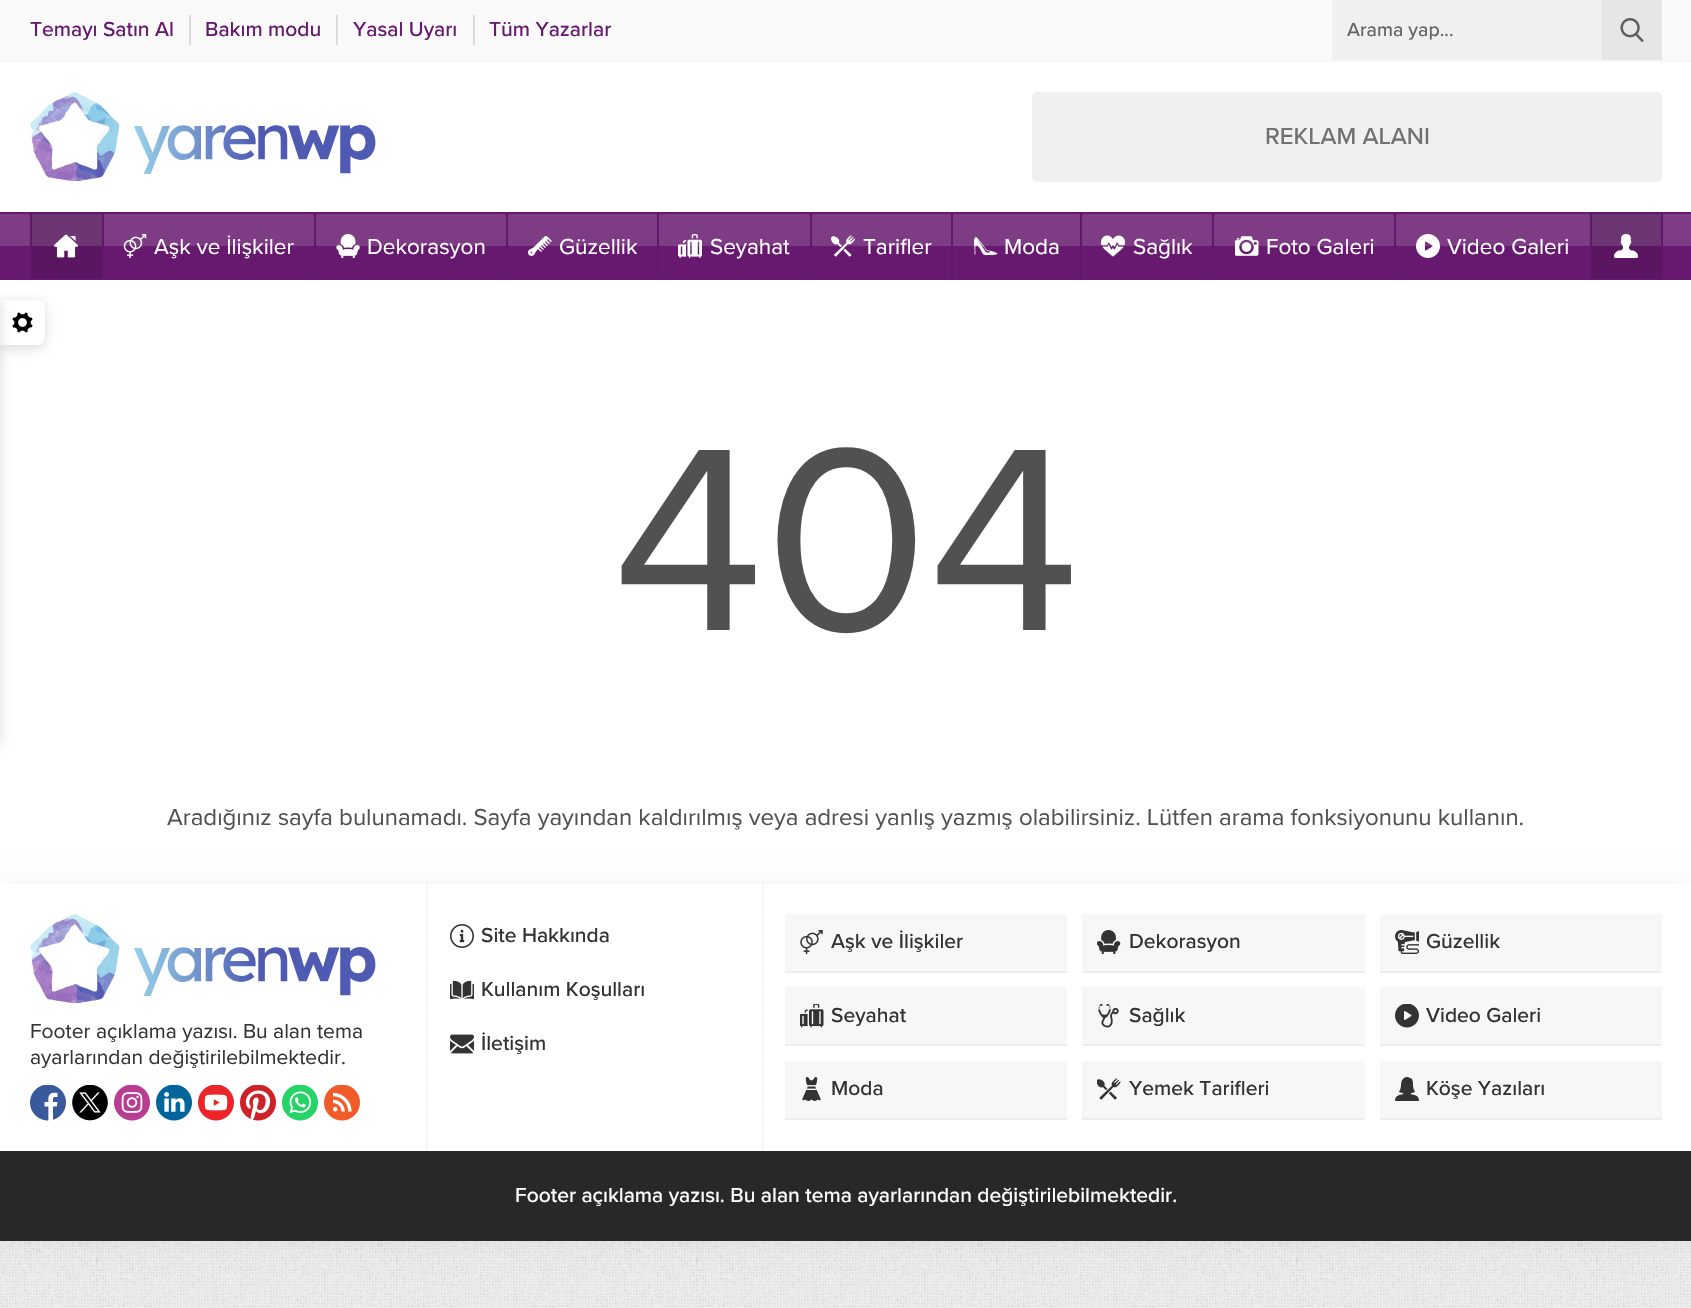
void draw(SkCanvas* canvas) {
    SkPaint paint;
    paint.setAntiAlias(true);
    auto face = [&](const char* family, int weight, float size, bool italic = false) {
        SkFontStyle style(weight, SkFontStyle::kNormal_Width,
            italic ? SkFontStyle::kItalic_Slant : SkFontStyle::kUpright_Slant);
        SkFont result(fontMgr->matchFamilyStyle(family, style), size);
        result.setSubpixel(true);
        return result;
    };
    auto write = [&](const char* s, float x, float y, const SkFont& font, SkColor color) {
        SkPaint ink(SkColor4f::FromColor(color));
        ink.setAntiAlias(true);
        canvas->drawString(s, x, y, font, ink);
    };
    auto block = [&](float x, float y, float w, float h, SkColor color) {
        SkPaint ink(SkColor4f::FromColor(color));
        ink.setAntiAlias(true);
        canvas->drawRect(SkRect::MakeXYWH(x, y, w, h), ink);
    };
    auto card = [&](float x, float y, float w, float h, float radius, SkColor color) {
        SkPaint ink(SkColor4f::FromColor(color));
        ink.setAntiAlias(true);
        canvas->drawRoundRect(SkRect::MakeXYWH(x, y, w, h), radius, radius, ink);
    };
    auto paste = [&](const char* path, float x, float y, float w, float h) {
        auto image = SkImages::DeferredFromEncodedData(SkData::MakeFromFileName(path));
        canvas->drawImageRect(image, SkRect::MakeXYWH(x, y, w, h), SkSamplingOptions());
    };
    canvas->clear(SK_ColorWHITE);
    paste("pic1.png", 0, 1241, 1691, 67);
    block(0, 0, 1691, 60, SkColorSetRGB(250, 250, 250));
    block(0, 60, 1691, 2, SkColorSetRGB(247, 247, 247));
    auto kFont1 = face("Proxima Nova", 500, 21);
    write("Temayı Satın Al", 30, 36, kFont1, SkColorSetRGB(102, 25, 110));
    block(189, 15, 2, 30, SkColorSetRGB(220, 220, 220));
    write("Bakım modu", 205, 36, kFont1, SkColorSetRGB(102, 25, 110));
    block(336, 15, 2, 30, SkColorSetRGB(220, 220, 220));
    write("Yasal Uyarı", 353, 36, kFont1, SkColorSetRGB(102, 25, 110));
    block(473, 15, 2, 30, SkColorSetRGB(220, 220, 220));
    write("Tüm Yazarlar", 489, 36, kFont1, SkColorSetRGB(102, 25, 110));
    block(1332, 0, 270, 60, SkColorSetRGB(240, 240, 240));
    auto kFont2 = face("Proxima Nova", 500, 19.5f);
    write("Arama yap...", 1347, 36, kFont2, SkColorSetRGB(102, 102, 102));
    block(1602, 0, 60, 60, SkColorSetRGB(230, 230, 230));
    paste("pic2.png", 1620, 18, 24, 24);
    paste("pic3.png", 30, 92, 346, 90);
    card(1032, 92, 630, 90, 5, SkColorSetRGB(240, 240, 240));
    auto kFont3 = face("Proxima Nova", 500, 24);
    write("REKLAM ALANI", 1265, 144, kFont3, SkColorSetRGB(113, 113, 113));
    paint.setColor(SkColorSetARGB(38, 0, 0, 0));
    paint.setMaskFilter(SkMaskFilter::MakeBlur(kNormal_SkBlurStyle, 6));
    canvas->drawRoundRect(SkRect::MakeXYWH(0, 303, 45, 45), 8, 8, paint);
    paint.setMaskFilter(nullptr);
    paint.setColor(SK_ColorWHITE);
    canvas->drawPath(SkPathBuilder().moveTo(0, 300).lineTo(37, 300).cubicTo(41.5f, 300, 45, 303.5f, 45, 308).lineTo(45, 337).cubicTo(45, 341.5f, 41.5f, 345, 37, 345).lineTo(0, 345).close().detach(), paint);
    paste("pic4.png", 12, 312, 21, 21);
    paint.setColor(SkColorSetARGB(38, 0, 0, 0));
    paint.setMaskFilter(SkMaskFilter::MakeBlur(kNormal_SkBlurStyle, 6));
    canvas->drawRect(SkRect::MakeXYWH(-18, 303, 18, 440), paint);
    paint.setMaskFilter(nullptr);
    block(0, 246, 1691, 34, SkColorSetRGB(102, 25, 110));
    block(0, 214, 1691, 32, SkColorSetRGB(125, 60, 132));
    block(0, 212, 1691, 2, SkColorSetRGB(102, 25, 110));
    block(1661, 213, 2, 66, SkColorSetRGB(97, 24, 105));
    block(30, 213, 2, 66, SkColorSetRGB(97, 24, 105));
    block(32, 213, 70, 66, SkColorSetARGB(31, 0, 0, 0));
    paste("pic5.png", 54, 234, 24, 24);
    block(102, 213, 2, 66, SkColorSetRGB(97, 24, 105));
    paste("pic6.png", 123, 234, 24, 24);
    auto kFont4 = face("Proxima Nova", 400, 22.5f);
    write("Aşk ve İlişkiler", 154, 254, kFont4, SK_ColorWHITE);
    block(314, 213, 2, 66, SkColorSetRGB(97, 24, 105));
    paste("pic7.png", 336, 234, 24, 24);
    write("Dekorasyon", 367, 254, kFont4, SK_ColorWHITE);
    block(506, 213, 2, 66, SkColorSetRGB(97, 24, 105));
    paste("pic8.png", 528, 236, 24, 20);
    write("Güzellik", 559, 254, kFont4, SK_ColorWHITE);
    block(657, 213, 2, 66, SkColorSetRGB(97, 24, 105));
    paste("pic9.png", 678, 234, 24, 24);
    write("Seyahat", 710, 254, kFont4, SK_ColorWHITE);
    block(810, 213, 2, 66, SkColorSetRGB(97, 24, 105));
    paste("pic10.png", 831, 235, 24, 22);
    write("Tarifler", 863, 254, kFont4, SK_ColorWHITE);
    block(951, 213, 2, 66, SkColorSetRGB(97, 24, 105));
    paste("pic11.png", 974, 236, 24, 20);
    write("Moda", 1004, 254, kFont4, SK_ColorWHITE);
    block(1080, 213, 2, 66, SkColorSetRGB(97, 24, 105));
    paste("pic12.png", 1101, 235, 24, 22);
    write("Sağlık", 1133, 254, kFont4, SK_ColorWHITE);
    block(1212, 213, 2, 66, SkColorSetRGB(97, 24, 105));
    paste("pic13.png", 1235, 236, 24, 20);
    write("Foto Galeri", 1266, 254, kFont4, SK_ColorWHITE);
    block(1394, 213, 2, 66, SkColorSetRGB(97, 24, 105));
    paste("pic14.png", 1416, 234, 24, 24);
    write("Video Galeri", 1447, 254, kFont4, SK_ColorWHITE);
    block(1592, 213, 69, 66, SkColorSetARGB(31, 0, 0, 0));
    block(1590, 213, 2, 66, SkColorSetRGB(97, 24, 105));
    paste("pic15.png", 1614, 234, 24, 24);
    auto kFont5 = face("Proxima Nova", 400, 270);
    write("404", 613, 630, kFont5, SkColorSetRGB(81, 81, 81));
    auto kFont6 = face("Proxima Nova", 400, 24);
    write("Aradığınız sayfa bulunamadı. Sayfa yayından kaldırılmış veya adresi yanlış yazmış olabilirsiniz. Lütfen arama fonksiyonunu kullanın.", 167, 825, kFont6, SkColorSetRGB(81, 81, 81));
    paint.setColor(SkColorSetARGB(13, 0, 0, 0));
    paint.setMaskFilter(SkMaskFilter::MakeBlur(kNormal_SkBlurStyle, 11));
    canvas->drawRect(SkRect::MakeXYWH(0, 884, 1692, 357), paint);
    paint.setMaskFilter(nullptr);
    block(0, 884, 1691, 267, SK_ColorWHITE);
    paste("pic16.png", 426, 883, 338, 268);
    paste("pic17.png", 30, 914, 346, 90);
    auto kFont7 = face("Proxima Nova", 400, 21);
    write("Footer açıklama yazısı. Bu alan tema", 30, 1038, kFont7, SkColorSetRGB(51, 51, 51));
    write("ayarlarından değiştirilebilmektedir.", 30, 1064, kFont7, SkColorSetRGB(51, 51, 51));
    paste("pic18.png", 30, 1085, 36, 36);
    paste("pic19.png", 72, 1085, 36, 36);
    paste("pic20.png", 114, 1085, 36, 36);
    paste("pic21.png", 156, 1085, 36, 36);
    paste("pic22.png", 198, 1085, 36, 36);
    paste("pic23.png", 240, 1085, 36, 36);
    paste("pic24.png", 282, 1085, 36, 36);
    paste("pic25.png", 324, 1085, 36, 36);
    paste("pic26.png", 450, 924, 24, 24);
    write("Site Hakkında", 481, 942, kFont1, SkColorSetRGB(51, 51, 51));
    paste("pic27.png", 450, 980, 24, 20);
    write("Kullanım Koşulları", 481, 996, kFont1, SkColorSetRGB(51, 51, 51));
    paste("pic28.png", 450, 1034, 24, 20);
    write("İletişim", 481, 1050, kFont1, SkColorSetRGB(51, 51, 51));
    block(785, 914, 282, 57, SkColorSetRGB(247, 247, 247));
    block(785, 971, 282, 2, SkColorSetRGB(237, 237, 237));
    paste("pic29.png", 800, 930, 23, 24);
    write("Aşk ve İlişkiler", 831, 948, kFont1, SkColorSetRGB(51, 51, 51));
    block(1082, 914, 283, 57, SkColorSetRGB(247, 247, 247));
    block(1082, 971, 283, 2, SkColorSetRGB(237, 237, 237));
    paste("pic30.png", 1097, 930, 24, 24);
    write("Dekorasyon", 1129, 948, kFont1, SkColorSetRGB(51, 51, 51));
    block(1380, 914, 282, 57, SkColorSetRGB(247, 247, 247));
    block(1380, 971, 282, 2, SkColorSetRGB(237, 237, 237));
    paste("pic31.png", 1395, 930, 24, 24);
    write("Güzellik", 1426, 948, kFont1, SkColorSetRGB(51, 51, 51));
    block(785, 987, 282, 57, SkColorSetRGB(247, 247, 247));
    block(785, 1044, 282, 2, SkColorSetRGB(237, 237, 237));
    paste("pic32.png", 800, 1004, 24, 24);
    write("Seyahat", 831, 1022, kFont1, SkColorSetRGB(51, 51, 51));
    block(1082, 987, 283, 57, SkColorSetRGB(247, 247, 247));
    block(1082, 1044, 283, 2, SkColorSetRGB(237, 237, 237));
    paste("pic33.png", 1098, 1004, 21, 24);
    write("Sağlık", 1129, 1022, kFont1, SkColorSetRGB(51, 51, 51));
    block(1380, 987, 282, 57, SkColorSetRGB(247, 247, 247));
    block(1380, 1044, 282, 2, SkColorSetRGB(237, 237, 237));
    paste("pic34.png", 1395, 1004, 24, 24);
    write("Video Galeri", 1426, 1022, kFont1, SkColorSetRGB(51, 51, 51));
    block(785, 1061, 282, 57, SkColorSetRGB(247, 247, 247));
    block(785, 1118, 282, 2, SkColorSetRGB(237, 237, 237));
    paste("pic35.png", 802, 1077, 19, 24);
    write("Moda", 831, 1095, kFont1, SkColorSetRGB(51, 51, 51));
    block(1082, 1061, 283, 57, SkColorSetRGB(247, 247, 247));
    block(1082, 1118, 283, 2, SkColorSetRGB(237, 237, 237));
    paste("pic36.png", 1097, 1078, 24, 22);
    write("Yemek Tarifleri", 1129, 1095, kFont1, SkColorSetRGB(51, 51, 51));
    block(1380, 1061, 282, 57, SkColorSetRGB(247, 247, 247));
    block(1380, 1118, 282, 2, SkColorSetRGB(237, 237, 237));
    paste("pic37.png", 1395, 1077, 24, 24);
    write("Köşe Yazıları", 1426, 1095, kFont1, SkColorSetRGB(51, 51, 51));
    block(0, 1151, 1691, 90, SkColorSetRGB(40, 40, 40));
    write("Footer açıklama yazısı. Bu alan tema ayarlarından değiştirilebilmektedir.", 515, 1202, kFont1, SK_ColorWHITE);
}
